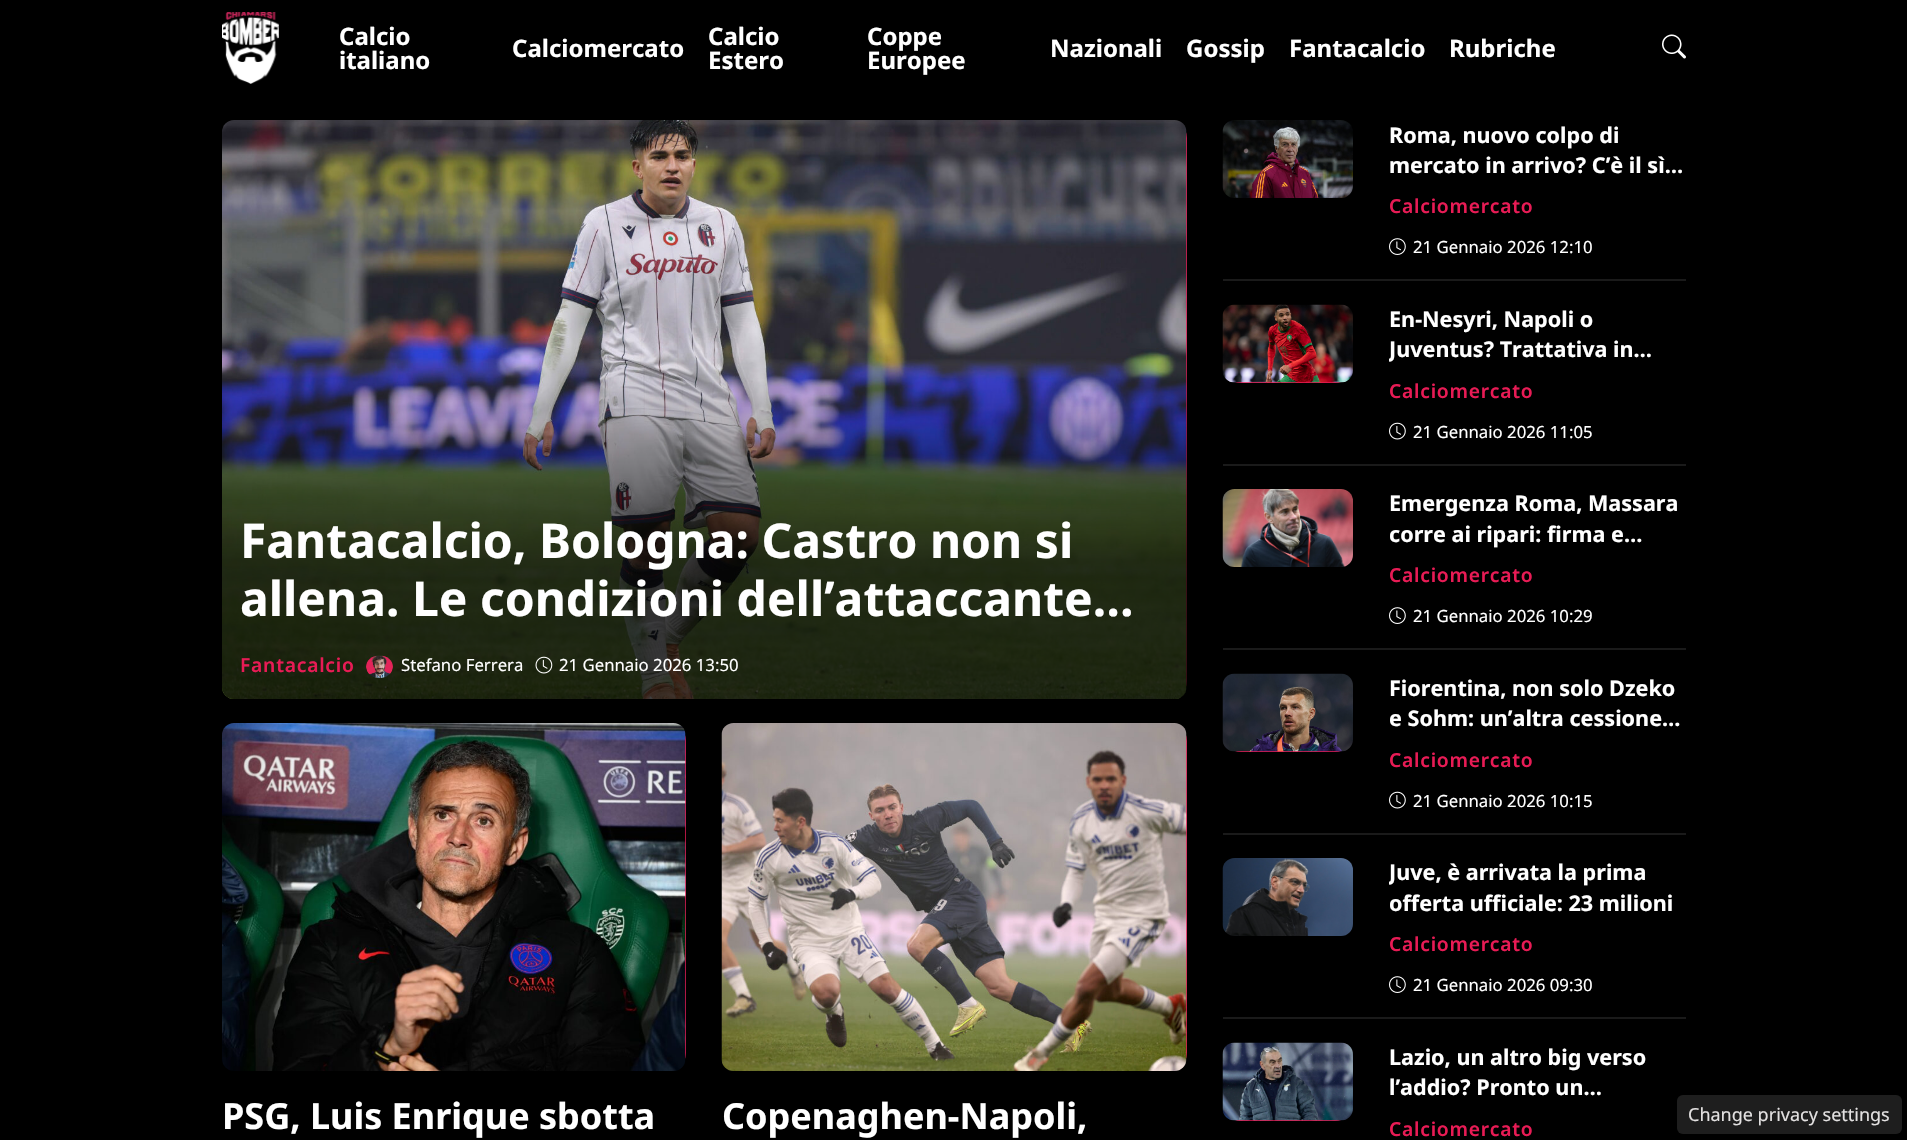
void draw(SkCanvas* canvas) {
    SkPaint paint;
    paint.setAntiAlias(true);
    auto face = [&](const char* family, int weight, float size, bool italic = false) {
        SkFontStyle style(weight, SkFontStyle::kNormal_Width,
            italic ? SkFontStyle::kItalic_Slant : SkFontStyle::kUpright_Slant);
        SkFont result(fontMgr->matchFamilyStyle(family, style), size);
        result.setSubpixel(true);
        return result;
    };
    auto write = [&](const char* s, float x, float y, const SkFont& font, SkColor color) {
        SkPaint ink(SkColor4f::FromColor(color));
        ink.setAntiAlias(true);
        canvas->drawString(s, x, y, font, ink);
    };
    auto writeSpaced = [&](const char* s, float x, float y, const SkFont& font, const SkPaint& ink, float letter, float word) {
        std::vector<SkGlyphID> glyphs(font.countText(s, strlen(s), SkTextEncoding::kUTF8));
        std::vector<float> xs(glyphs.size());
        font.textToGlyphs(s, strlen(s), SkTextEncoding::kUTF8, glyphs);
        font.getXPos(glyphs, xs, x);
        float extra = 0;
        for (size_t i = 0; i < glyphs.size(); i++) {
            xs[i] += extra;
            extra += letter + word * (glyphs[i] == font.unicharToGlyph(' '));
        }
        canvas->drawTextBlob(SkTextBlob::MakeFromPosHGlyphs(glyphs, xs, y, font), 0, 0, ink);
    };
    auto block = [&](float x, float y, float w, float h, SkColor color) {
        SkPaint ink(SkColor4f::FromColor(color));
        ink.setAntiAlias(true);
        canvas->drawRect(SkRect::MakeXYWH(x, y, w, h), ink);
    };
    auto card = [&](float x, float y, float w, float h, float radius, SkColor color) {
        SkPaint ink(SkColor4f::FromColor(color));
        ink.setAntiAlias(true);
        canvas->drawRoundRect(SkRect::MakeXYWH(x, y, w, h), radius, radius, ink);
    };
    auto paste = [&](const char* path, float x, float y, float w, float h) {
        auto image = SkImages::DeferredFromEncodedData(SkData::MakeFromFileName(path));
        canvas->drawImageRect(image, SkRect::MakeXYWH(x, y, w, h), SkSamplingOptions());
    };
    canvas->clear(SK_ColorBLACK);
    paste("pic1.png", 222, 12, 57, 72);
    auto kFont1 = face("Noto Sans", 700, 24);
    write("Calcio", 339, 45, kFont1, SK_ColorWHITE);
    write("italiano", 339, 69, kFont1, SK_ColorWHITE);
    write("Calciomercato", 512, 57, kFont1, SK_ColorWHITE);
    write("Calcio", 708, 45, kFont1, SK_ColorWHITE);
    write("Estero", 708, 69, kFont1, SK_ColorWHITE);
    write("Coppe", 867, 45, kFont1, SK_ColorWHITE);
    write("Europee", 867, 69, kFont1, SK_ColorWHITE);
    write("Nazionali", 1050, 57, kFont1, SK_ColorWHITE);
    write("Gossip", 1186, 57, kFont1, SK_ColorWHITE);
    write("Fantacalcio", 1289, 57, kFont1, SK_ColorWHITE);
    write("Rubriche", 1449, 57, kFont1, SK_ColorWHITE);
    paste("pic2.png", 1662, 34, 24, 25);
    card(222, 120, 965, 579, 18, SkColorSetRGB(232, 27, 85));
    card(222, 723, 464, 348, 18, SkColorSetRGB(232, 27, 85));
    card(722, 723, 465, 348, 18, SkColorSetRGB(232, 27, 85));
    canvas->save();
    canvas->clipPath(SkPathBuilder(SkPathFillType::kEvenOdd).moveTo(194, 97).lineTo(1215, 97).lineTo(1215, 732).lineTo(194, 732).close().moveTo(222, 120).lineTo(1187, 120).lineTo(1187, 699).lineTo(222, 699).close().detach(), true);
    paint.setColor(SkColorSetARGB(153, 0, 0, 0));
    paint.setMaskFilter(SkMaskFilter::MakeBlur(kNormal_SkBlurStyle, 9));
    canvas->drawRect(SkRect::MakeXYWH(222, 125, 965, 579), paint);
    paint.setMaskFilter(nullptr);
    canvas->restore();
    paste("pic3.png", 222, 120, 965, 579);
    {
        const SkColor colors[] = {SkColorSetARGB(191, 0, 0, 0), SkColorSetARGB(179, 0, 0, 0), SkColorSetARGB(0, 0, 0, 0)};
        const float stops[] = {0, 0.4f, 1};
        const SkPoint ends[] = {{704, 699}, {704, 351}};
        paint.setShader(SkGradientShader::MakeLinear(ends, colors, stops, 3, SkTileMode::kClamp));
        paint.setAlpha(255);
    }
    canvas->drawPath(SkPathBuilder().moveTo(222, 351).lineTo(1187, 351).lineTo(1187, 687).cubicTo(1187, 693.5f, 1181.5f, 699, 1175, 699).lineTo(234, 699).cubicTo(227.5f, 699, 222, 693.5f, 222, 687).close().detach(), paint);
    auto kFont2 = face("Noto Sans", 700, 48);
    write("Fantacalcio, Bologna: Castro non si", 240, 558, kFont2, SK_ColorWHITE);
    write("allena. Le condizioni dell’attaccante…", 240, 616, kFont2, SK_ColorWHITE);
    auto kFont3 = face("Noto Sans", 600, 19.25f);
    paint.setShader(nullptr);
    paint.setColor(SkColorSetRGB(232, 27, 85));
    writeSpaced("Fantacalcio", 240, 672, kFont3, paint, 0.75f, 0);
    paste("pic4.png", 366, 655, 27, 23);
    auto kFont4 = face("Noto Sans", 400, 16.75f);
    write("Stefano Ferrera", 401, 671, kFont4, SK_ColorWHITE);
    paste("pic5.png", 535, 656, 18, 18);
    write("21 Gennaio 2026 13:50", 559, 671, kFont4, SK_ColorWHITE);
    canvas->save();
    canvas->clipPath(SkPathBuilder(SkPathFillType::kEvenOdd).moveTo(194, 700).lineTo(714, 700).lineTo(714, 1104).lineTo(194, 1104).close().moveTo(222, 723).lineTo(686, 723).lineTo(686, 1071).lineTo(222, 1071).close().detach(), true);
    paint.setColor(SkColorSetARGB(153, 0, 0, 0));
    paint.setMaskFilter(SkMaskFilter::MakeBlur(kNormal_SkBlurStyle, 9));
    canvas->drawRect(SkRect::MakeXYWH(222, 728, 464, 348), paint);
    paint.setMaskFilter(nullptr);
    canvas->restore();
    paste("pic6.png", 222, 723, 464, 348);
    auto kFont5 = face("Noto Sans", 700, 36);
    write("PSG, Luis Enrique sbotta", 222, 1129, kFont5, SK_ColorWHITE);
    canvas->save();
    canvas->clipPath(SkPathBuilder(SkPathFillType::kEvenOdd).moveTo(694, 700).lineTo(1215, 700).lineTo(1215, 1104).lineTo(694, 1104).close().moveTo(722, 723).lineTo(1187, 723).lineTo(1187, 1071).lineTo(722, 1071).close().detach(), true);
    paint.setMaskFilter(SkMaskFilter::MakeBlur(kNormal_SkBlurStyle, 9));
    canvas->drawRect(SkRect::MakeXYWH(722, 728, 465, 348), paint);
    paint.setMaskFilter(nullptr);
    canvas->restore();
    paste("pic7.png", 721, 723, 466, 348);
    write("Copenaghen-Napoli,", 722, 1129, kFont5, SK_ColorWHITE);
    block(1223, 279, 463, 2, SkColorSetRGB(26, 26, 26));
    paste("pic8.png", 1222, 120, 131, 78);
    auto kFont6 = face("Noto Sans", 700, 21.6f);
    write("Roma, nuovo colpo di", 1389, 143, kFont6, SK_ColorWHITE);
    write("mercato in arrivo? C’è il sì…", 1389, 173, kFont6, SK_ColorWHITE);
    paint.setColor(SkColorSetRGB(232, 27, 85));
    writeSpaced("Calciomercato", 1389, 213, kFont3, paint, 0.75f, 0);
    paste("pic9.png", 1389, 238, 17, 17);
    write("21 Gennaio 2026 12:10", 1413, 253, kFont4, SK_ColorWHITE);
    block(1223, 464, 463, 2, SkColorSetRGB(26, 26, 26));
    card(1223, 305, 130, 78, 18, SkColorSetRGB(232, 27, 85));
    canvas->save();
    canvas->clipPath(SkPathBuilder(SkPathFillType::kEvenOdd).moveTo(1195, 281).lineTo(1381, 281).lineTo(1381, 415).lineTo(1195, 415).close().moveTo(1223, 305).lineTo(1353, 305).lineTo(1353, 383).lineTo(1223, 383).close().detach(), true);
    paint.setColor(SkColorSetARGB(153, 0, 0, 0));
    paint.setMaskFilter(SkMaskFilter::MakeBlur(kNormal_SkBlurStyle, 9));
    canvas->drawRect(SkRect::MakeXYWH(1223, 309, 130, 78), paint);
    paint.setMaskFilter(nullptr);
    canvas->restore();
    paste("pic10.png", 1222, 304, 131, 79);
    write("En-Nesyri, Napoli o", 1389, 327, kFont6, SK_ColorWHITE);
    canvas->save();
    canvas->clipRect(SkRect::MakeXYWH(1389, 305, 297, 60));
    write("Juventus? Trattativa in…", 1389, 357, kFont6, SK_ColorWHITE);
    canvas->restore();
    paint.setColor(SkColorSetRGB(232, 27, 85));
    writeSpaced("Calciomercato", 1389, 398, kFont3, paint, 0.75f, 0);
    paste("pic11.png", 1389, 422, 17, 18);
    write("21 Gennaio 2026 11:05", 1413, 438, kFont4, SK_ColorWHITE);
    block(1223, 648, 463, 2, SkColorSetRGB(26, 26, 26));
    paste("pic12.png", 1222, 489, 131, 78);
    write("Emergenza Roma, Massara", 1389, 511, kFont6, SK_ColorWHITE);
    write("corre ai ripari: firma e…", 1389, 542, kFont6, SK_ColorWHITE);
    writeSpaced("Calciomercato", 1389, 582, kFont3, paint, 0.75f, 0);
    paste("pic9.png", 1389, 607, 17, 17);
    write("21 Gennaio 2026 10:29", 1413, 622, kFont4, SK_ColorWHITE);
    block(1223, 833, 463, 2, SkColorSetRGB(26, 26, 26));
    card(1223, 674, 130, 78, 18, SkColorSetRGB(232, 27, 85));
    canvas->save();
    canvas->clipPath(SkPathBuilder(SkPathFillType::kEvenOdd).moveTo(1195, 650).lineTo(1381, 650).lineTo(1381, 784).lineTo(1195, 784).close().moveTo(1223, 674).lineTo(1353, 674).lineTo(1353, 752).lineTo(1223, 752).close().detach(), true);
    paint.setColor(SkColorSetARGB(153, 0, 0, 0));
    paint.setMaskFilter(SkMaskFilter::MakeBlur(kNormal_SkBlurStyle, 9));
    canvas->drawRect(SkRect::MakeXYWH(1223, 678, 130, 78), paint);
    paint.setMaskFilter(nullptr);
    canvas->restore();
    paste("pic13.png", 1222, 673, 131, 79);
    write("Fiorentina, non solo Dzeko", 1389, 696, kFont6, SK_ColorWHITE);
    write("e Sohm: un’altra cessione…", 1389, 726, kFont6, SK_ColorWHITE);
    paint.setColor(SkColorSetRGB(232, 27, 85));
    writeSpaced("Calciomercato", 1389, 767, kFont3, paint, 0.75f, 0);
    paste("pic11.png", 1389, 791, 17, 18);
    write("21 Gennaio 2026 10:15", 1413, 807, kFont4, SK_ColorWHITE);
    block(1223, 1017, 463, 2, SkColorSetRGB(26, 26, 26));
    paste("pic14.png", 1222, 858, 131, 78);
    canvas->save();
    canvas->clipRect(SkRect::MakeXYWH(1389, 858, 297, 60));
    write("Juve, è arrivata la prima", 1389, 880, kFont6, SK_ColorWHITE);
    canvas->restore();
    write("offerta ufficiale: 23 milioni", 1389, 911, kFont6, SK_ColorWHITE);
    writeSpaced("Calciomercato", 1389, 951, kFont3, paint, 0.75f, 0);
    paste("pic9.png", 1389, 976, 17, 17);
    write("21 Gennaio 2026 09:30", 1413, 991, kFont4, SK_ColorWHITE);
    card(1223, 1043, 130, 78, 18, SkColorSetRGB(232, 27, 85));
    canvas->save();
    canvas->clipPath(SkPathBuilder(SkPathFillType::kEvenOdd).moveTo(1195, 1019).lineTo(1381, 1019).lineTo(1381, 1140).lineTo(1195, 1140).close().moveTo(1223, 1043).lineTo(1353, 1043).lineTo(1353, 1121).lineTo(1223, 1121).close().detach(), true);
    paint.setColor(SkColorSetARGB(153, 0, 0, 0));
    paint.setMaskFilter(SkMaskFilter::MakeBlur(kNormal_SkBlurStyle, 9));
    canvas->drawRect(SkRect::MakeXYWH(1223, 1047, 130, 78), paint);
    paint.setMaskFilter(nullptr);
    canvas->restore();
    paste("pic15.png", 1222, 1042, 131, 79);
    write("Lazio, un altro big verso", 1389, 1065, kFont6, SK_ColorWHITE);
    write("l’addio? Pronto un…", 1389, 1095, kFont6, SK_ColorWHITE);
    paint.setColor(SkColorSetRGB(232, 27, 85));
    writeSpaced("Calciomercato", 1389, 1136, kFont3, paint, 0.75f, 0);
    card(1677, 1095, 225, 39, 6, SkColorSetRGB(30, 30, 30));
    auto kFont7 = face("Noto Sans", 400, 18);
    write("Change privacy settings", 1688, 1121, kFont7, SkColorSetRGB(227, 225, 225));
}
